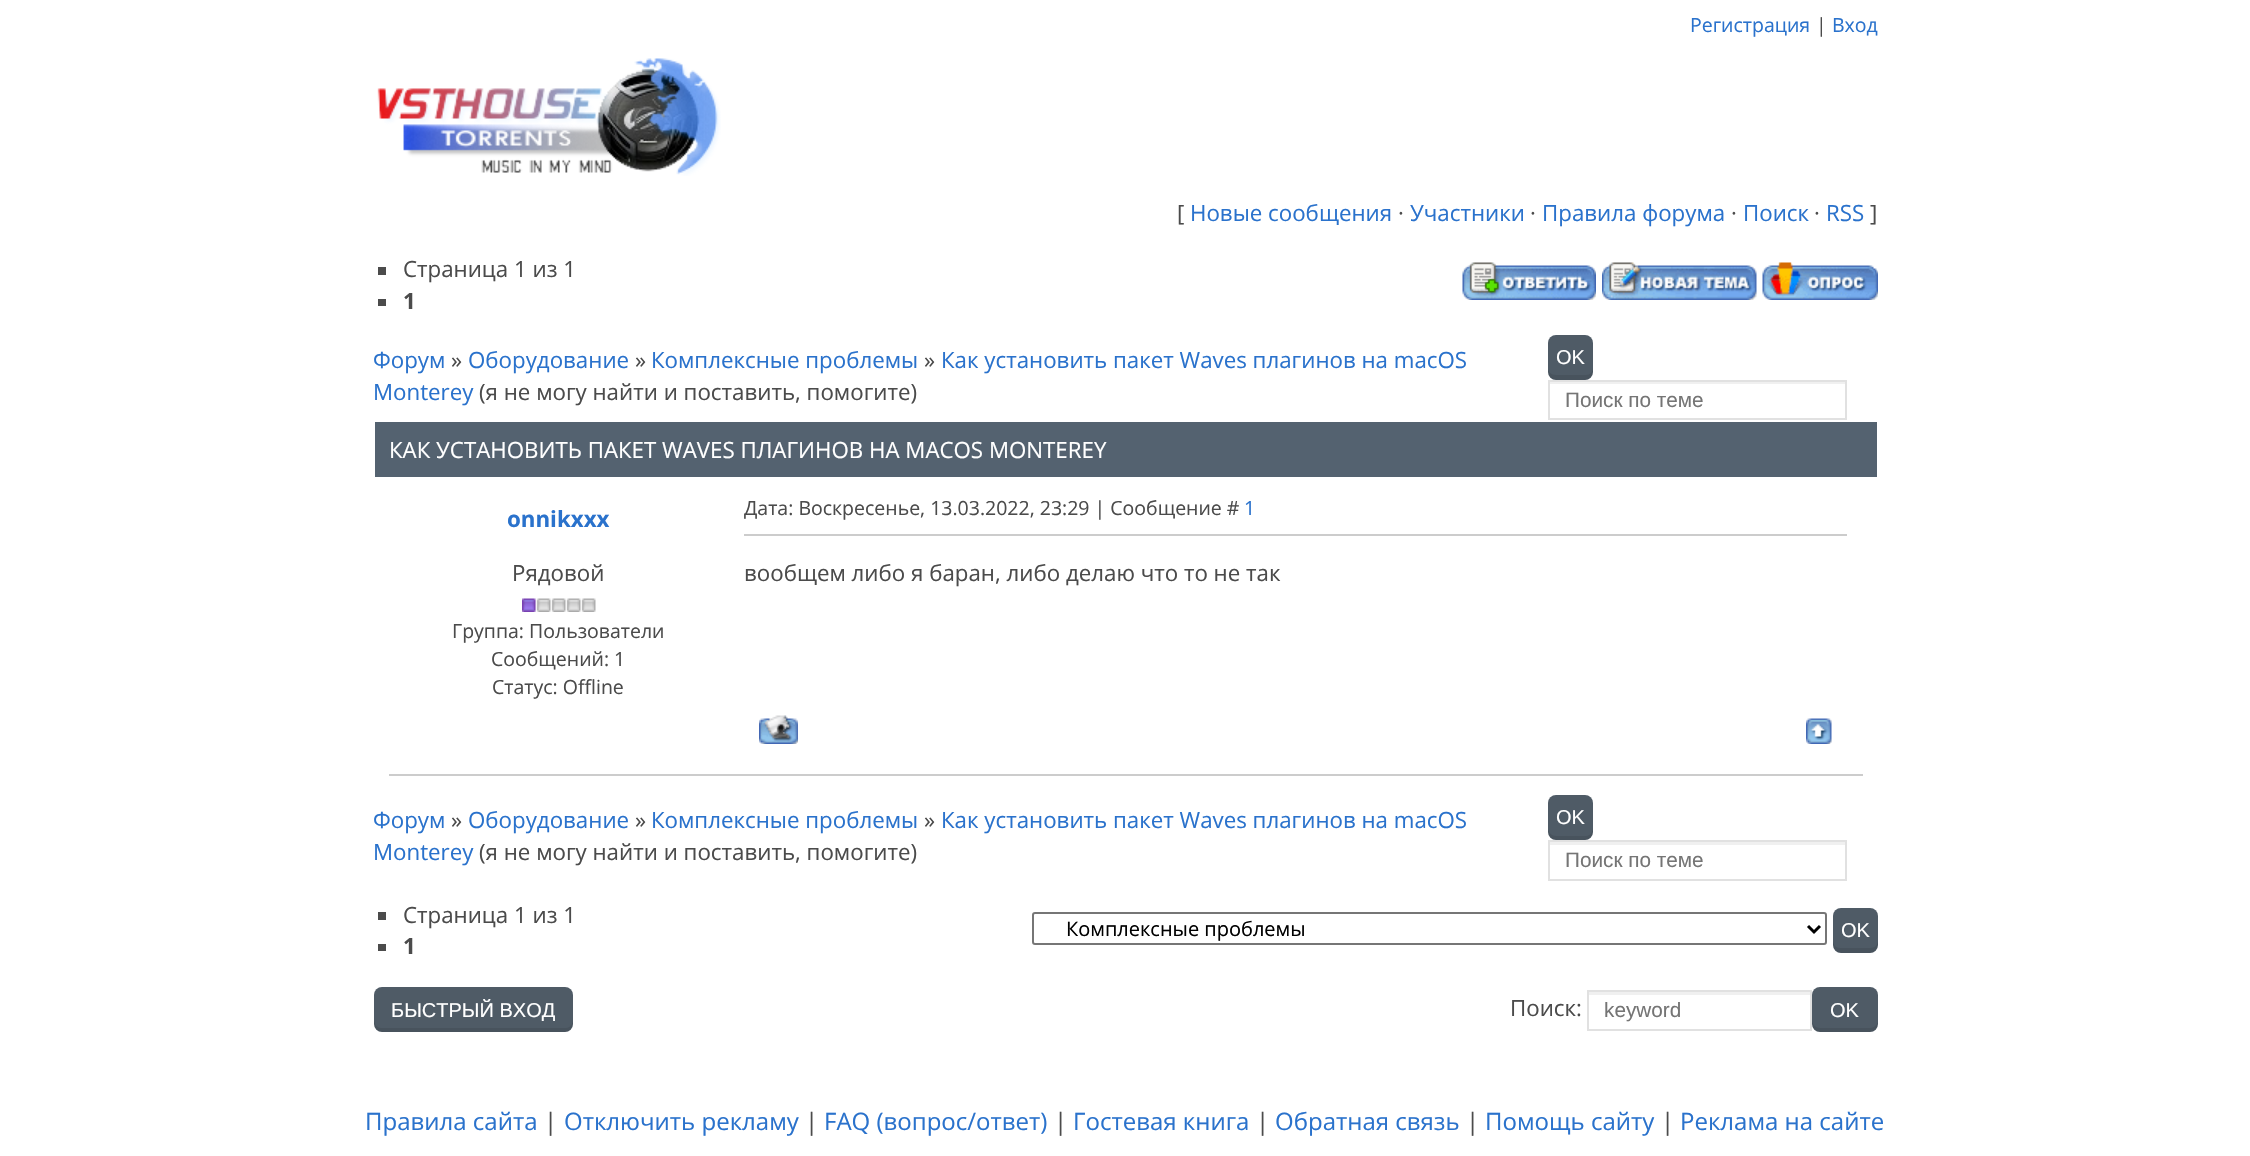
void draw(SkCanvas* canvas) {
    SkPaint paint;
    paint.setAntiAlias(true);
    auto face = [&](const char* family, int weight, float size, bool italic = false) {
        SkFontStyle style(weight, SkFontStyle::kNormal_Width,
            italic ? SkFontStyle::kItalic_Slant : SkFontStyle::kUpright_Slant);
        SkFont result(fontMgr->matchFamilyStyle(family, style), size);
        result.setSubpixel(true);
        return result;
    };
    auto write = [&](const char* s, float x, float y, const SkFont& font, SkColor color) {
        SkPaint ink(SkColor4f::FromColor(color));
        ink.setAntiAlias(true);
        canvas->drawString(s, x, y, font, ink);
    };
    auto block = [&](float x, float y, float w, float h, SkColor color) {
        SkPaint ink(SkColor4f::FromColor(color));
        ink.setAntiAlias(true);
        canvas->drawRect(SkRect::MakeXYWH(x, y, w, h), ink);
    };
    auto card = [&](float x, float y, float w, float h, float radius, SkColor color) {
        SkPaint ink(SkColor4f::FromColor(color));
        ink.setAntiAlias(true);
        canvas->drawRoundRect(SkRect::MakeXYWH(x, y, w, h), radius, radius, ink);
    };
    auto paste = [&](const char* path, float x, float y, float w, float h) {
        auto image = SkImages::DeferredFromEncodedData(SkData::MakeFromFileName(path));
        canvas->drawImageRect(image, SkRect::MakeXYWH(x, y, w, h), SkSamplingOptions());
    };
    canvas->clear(SK_ColorWHITE);
    auto kFont1 = face("Open Sans", 400, 19.5f);
    write("Регистрация", 1690, 32, kFont1, SkColorSetRGB(42, 114, 204));
    write("|", 1816, 32, kFont1, SkColorSetRGB(75, 75, 75));
    write("Вход", 1832, 32, kFont1, SkColorSetRGB(42, 114, 204));
    paste("pic1.png", 377, 58, 344, 118);
    auto kFont2 = face("Open Sans", 400, 22.3f);
    write("[", 1177, 221, kFont2, SkColorSetRGB(75, 75, 75));
    write("Новые сообщения", 1190, 221, kFont2, SkColorSetRGB(42, 114, 204));
    write("·", 1398, 221, kFont2, SkColorSetRGB(75, 75, 75));
    write("Участники", 1410, 221, kFont2, SkColorSetRGB(42, 114, 204));
    write("·", 1530, 221, kFont2, SkColorSetRGB(75, 75, 75));
    write("Правила форума", 1542, 221, kFont2, SkColorSetRGB(42, 114, 204));
    write("·", 1731, 221, kFont2, SkColorSetRGB(75, 75, 75));
    write("Поиск", 1743, 221, kFont2, SkColorSetRGB(42, 114, 204));
    write("·", 1814, 221, kFont2, SkColorSetRGB(75, 75, 75));
    write("RSS", 1826, 221, kFont2, SkColorSetRGB(42, 114, 204));
    write("]", 1870, 221, kFont2, SkColorSetRGB(75, 75, 75));
    block(378, 267, 8, 8, SkColorSetRGB(75, 75, 75));
    write("Страница 1 из 1", 403, 277, kFont2, SkColorSetRGB(75, 75, 75));
    block(378, 299, 8, 7, SkColorSetRGB(75, 75, 75));
    auto kFont3 = face("Open Sans", 700, 22.3f);
    write("1", 403, 309, kFont3, SkColorSetRGB(75, 75, 75));
    paste("pic2.png", 1462, 262, 134, 38);
    paste("pic3.png", 1602, 262, 155, 38);
    paste("pic4.png", 1762, 262, 116, 38);
    write("Форум", 373, 368, kFont2, SkColorSetRGB(42, 114, 204));
    write("»", 451, 368, kFont2, SkColorSetRGB(75, 75, 75));
    write("Оборудование", 468, 368, kFont2, SkColorSetRGB(42, 114, 204));
    write("»", 635, 368, kFont2, SkColorSetRGB(75, 75, 75));
    write("Комплексные проблемы", 651, 368, kFont2, SkColorSetRGB(42, 114, 204));
    write("»", 924, 368, kFont2, SkColorSetRGB(75, 75, 75));
    write("Как установить пакет Waves плагинов на macOS", 941, 368, kFont2, SkColorSetRGB(42, 114, 204));
    write("Monterey", 373, 400, kFont2, SkColorSetRGB(42, 114, 204));
    write("(я не могу найти и поставить, помогите)", 479, 400, kFont2, SkColorSetRGB(75, 75, 75));
    card(1548, 335, 45, 45, 8, SkColorSetRGB(79, 91, 102));
    paint.setColor(SkColorSetARGB(23, 0, 0, 0));
    canvas->drawPath(SkPathBuilder().moveTo(1548, 368).lineTo(1548, 372).cubicTo(1548, 376, 1552, 380, 1556, 380).lineTo(1585, 380).cubicTo(1589, 380, 1593, 376, 1593, 372).lineTo(1593, 368).cubicTo(1593, 372, 1590, 375, 1586, 375).lineTo(1556, 375).cubicTo(1551, 375, 1548, 372, 1548, 368).close().detach(), paint);
    auto kFont4 = face("Liberation Sans", 400, 20);
    write("OK", 1556, 364, kFont4, SK_ColorWHITE);
    block(1550, 382, 295, 2, SkColorSetRGB(240, 240, 240));
    paint.setStyle(SkPaint::kStroke_Style);
    paint.setStrokeWidth(2);
    paint.setColor(SkColorSetRGB(225, 225, 225));
    canvas->drawRect(SkRect::MakeXYWH(1549, 381, 297, 38), paint);
    auto kFont5 = face("Liberation Sans", 400, 20.75f);
    write("Поиск по теме", 1565, 407, kFont5, SkColorSetRGB(117, 117, 117));
    block(375, 422, 1502, 55, SkColorSetRGB(84, 98, 112));
    write("КАК УСТАНОВИТЬ ПАКЕТ WAVES ПЛАГИНОВ НА MACOS MONTEREY", 389, 458, kFont2, SK_ColorWHITE);
    write("onnikxxx", 507, 527, kFont3, SkColorSetRGB(42, 114, 204));
    write("Дата: Воскресенье, 13.03.2022, 23:29 | Сообщение #", 744, 515, kFont1, SkColorSetRGB(75, 75, 75));
    write("1", 1244, 515, kFont1, SkColorSetRGB(42, 114, 204));
    block(744, 534, 1103, 2, SkColorSetRGB(204, 204, 204));
    write("Рядовой", 512, 581, kFont2, SkColorSetRGB(75, 75, 75));
    paste("pic5.png", 522, 598, 74, 14);
    write("Группа: Пользователи", 452, 638, kFont1, SkColorSetRGB(75, 75, 75));
    write("Сообщений: 1", 491, 666, kFont1, SkColorSetRGB(75, 75, 75));
    write("Статус: Offline", 492, 694, kFont1, SkColorSetRGB(75, 75, 75));
    write("вообщем либо я баран, либо делаю что то не так", 744, 581, kFont2, SkColorSetRGB(75, 75, 75));
    paste("pic6.png", 759, 715, 39, 29);
    paste("pic7.png", 1806, 718, 26, 26);
    block(389, 774, 1474, 2, SkColorSetRGB(204, 204, 204));
    write("Форум", 373, 828, kFont2, SkColorSetRGB(42, 114, 204));
    write("»", 451, 828, kFont2, SkColorSetRGB(75, 75, 75));
    write("Оборудование", 468, 828, kFont2, SkColorSetRGB(42, 114, 204));
    write("»", 635, 828, kFont2, SkColorSetRGB(75, 75, 75));
    write("Комплексные проблемы", 651, 828, kFont2, SkColorSetRGB(42, 114, 204));
    write("»", 924, 828, kFont2, SkColorSetRGB(75, 75, 75));
    write("Как установить пакет Waves плагинов на macOS", 941, 828, kFont2, SkColorSetRGB(42, 114, 204));
    write("Monterey", 373, 860, kFont2, SkColorSetRGB(42, 114, 204));
    write("(я не могу найти и поставить, помогите)", 479, 860, kFont2, SkColorSetRGB(75, 75, 75));
    card(1548, 795, 45, 45, 8, SkColorSetRGB(79, 91, 102));
    paint.setStyle(SkPaint::kFill_Style);
    paint.setColor(SkColorSetARGB(23, 0, 0, 0));
    canvas->drawPath(SkPathBuilder().moveTo(1548, 828).lineTo(1548, 832).cubicTo(1548, 836, 1552, 840, 1556, 840).lineTo(1585, 840).cubicTo(1589, 840, 1593, 836, 1593, 832).lineTo(1593, 828).cubicTo(1593, 832, 1590, 836, 1586, 836).lineTo(1556, 836).cubicTo(1551, 836, 1548, 832, 1548, 828).close().detach(), paint);
    write("OK", 1556, 824, kFont4, SK_ColorWHITE);
    block(1550, 842, 295, 3, SkColorSetRGB(240, 240, 240));
    paint.setStyle(SkPaint::kStroke_Style);
    paint.setColor(SkColorSetRGB(225, 225, 225));
    canvas->drawRect(SkRect::MakeXYWH(1549, 841, 297, 39), paint);
    write("Поиск по теме", 1565, 867, kFont5, SkColorSetRGB(117, 117, 117));
    block(378, 912, 8, 8, SkColorSetRGB(75, 75, 75));
    write("Страница 1 из 1", 403, 923, kFont2, SkColorSetRGB(75, 75, 75));
    block(378, 944, 8, 7, SkColorSetRGB(75, 75, 75));
    write("1", 403, 954, kFont3, SkColorSetRGB(75, 75, 75));
    paint.setColor(SkColorSetRGB(118, 118, 118));
    canvas->drawRoundRect(SkRect::MakeXYWH(1033, 913, 793, 31), 2, 2, paint);
    paint.setStrokeWidth(3);
    paint.setColor(SK_ColorBLACK);
    canvas->drawPath(SkPathBuilder().moveTo(1808, 926).lineTo(1814, 932).lineTo(1820, 926).detach(), paint);
    auto kFont6 = face("Open Sans", 400, 20);
    write("Комплексные проблемы", 1066, 936, kFont6, SK_ColorBLACK);
    card(1833, 908, 45, 45, 8, SkColorSetRGB(79, 91, 102));
    paint.setStyle(SkPaint::kFill_Style);
    paint.setColor(SkColorSetARGB(23, 0, 0, 0));
    canvas->drawPath(SkPathBuilder().moveTo(1833, 940).lineTo(1833, 945).cubicTo(1833, 949, 1837, 953, 1841, 953).lineTo(1870, 953).cubicTo(1874, 953, 1878, 949, 1878, 945).lineTo(1878, 940).cubicTo(1878, 945, 1875, 948, 1870, 948).lineTo(1840, 948).cubicTo(1836, 948, 1833, 945, 1833, 940).close().detach(), paint);
    write("OK", 1841, 937, kFont4, SK_ColorWHITE);
    card(374, 987, 199, 45, 8, SkColorSetRGB(79, 91, 102));
    canvas->drawPath(SkPathBuilder().moveTo(374, 1020).lineTo(374, 1024).cubicTo(374, 1028, 378, 1032, 382, 1032).lineTo(565, 1032).cubicTo(569, 1032, 573, 1028, 573, 1024).lineTo(573, 1020).cubicTo(573, 1024, 570, 1028, 566, 1028).lineTo(381, 1028).cubicTo(377, 1028, 374, 1024, 374, 1020).close().detach(), paint);
    write("БЫСТРЫЙ ВХОД", 391, 1017, kFont4, SK_ColorWHITE);
    write("Поиск:", 1510, 1016, kFont2, SkColorSetRGB(75, 75, 75));
    block(1589, 992, 222, 3, SkColorSetRGB(240, 240, 240));
    paint.setStyle(SkPaint::kStroke_Style);
    paint.setStrokeWidth(2);
    paint.setColor(SkColorSetRGB(225, 225, 225));
    canvas->drawRect(SkRect::MakeXYWH(1588, 991, 223, 39), paint);
    write("keyword", 1604, 1017, kFont5, SkColorSetRGB(117, 117, 117));
    card(1812, 987, 66, 45, 8, SkColorSetRGB(79, 91, 102));
    paint.setStyle(SkPaint::kFill_Style);
    paint.setColor(SkColorSetARGB(23, 0, 0, 0));
    canvas->drawPath(SkPathBuilder().moveTo(1812, 1020).cubicTo(1812, 1033, 1817, 1032, 1828, 1032).lineTo(1862, 1032).cubicTo(1873, 1032, 1878, 1033, 1878, 1020).cubicTo(1878, 1024, 1875, 1028, 1870, 1028).lineTo(1820, 1028).cubicTo(1815, 1028, 1812, 1024, 1812, 1020).close().detach(), paint);
    write("OK", 1830, 1017, kFont4, SK_ColorWHITE);
    auto kFont7 = face("Open Sans", 400, 24);
    write("Правила сайта", 365, 1130, kFont7, SkColorSetRGB(42, 114, 204));
    write("|", 544, 1130, kFont7, SkColorSetRGB(75, 75, 75));
    write("Отключить рекламу", 564, 1130, kFont7, SkColorSetRGB(42, 114, 204));
    write("|", 805, 1130, kFont7, SkColorSetRGB(75, 75, 75));
    write("FAQ (вопрос/ответ)", 824, 1130, kFont7, SkColorSetRGB(42, 114, 204));
    write("|", 1054, 1130, kFont7, SkColorSetRGB(75, 75, 75));
    write("Гостевая книга", 1073, 1130, kFont7, SkColorSetRGB(42, 114, 204));
    write("|", 1256, 1130, kFont7, SkColorSetRGB(75, 75, 75));
    write("Обратная связь", 1275, 1130, kFont7, SkColorSetRGB(42, 114, 204));
    write("|", 1466, 1130, kFont7, SkColorSetRGB(75, 75, 75));
    write("Помощь сайту", 1485, 1130, kFont7, SkColorSetRGB(42, 114, 204));
    write("|", 1661, 1130, kFont7, SkColorSetRGB(75, 75, 75));
    write("Реклама на сайте", 1680, 1130, kFont7, SkColorSetRGB(42, 114, 204));
}
